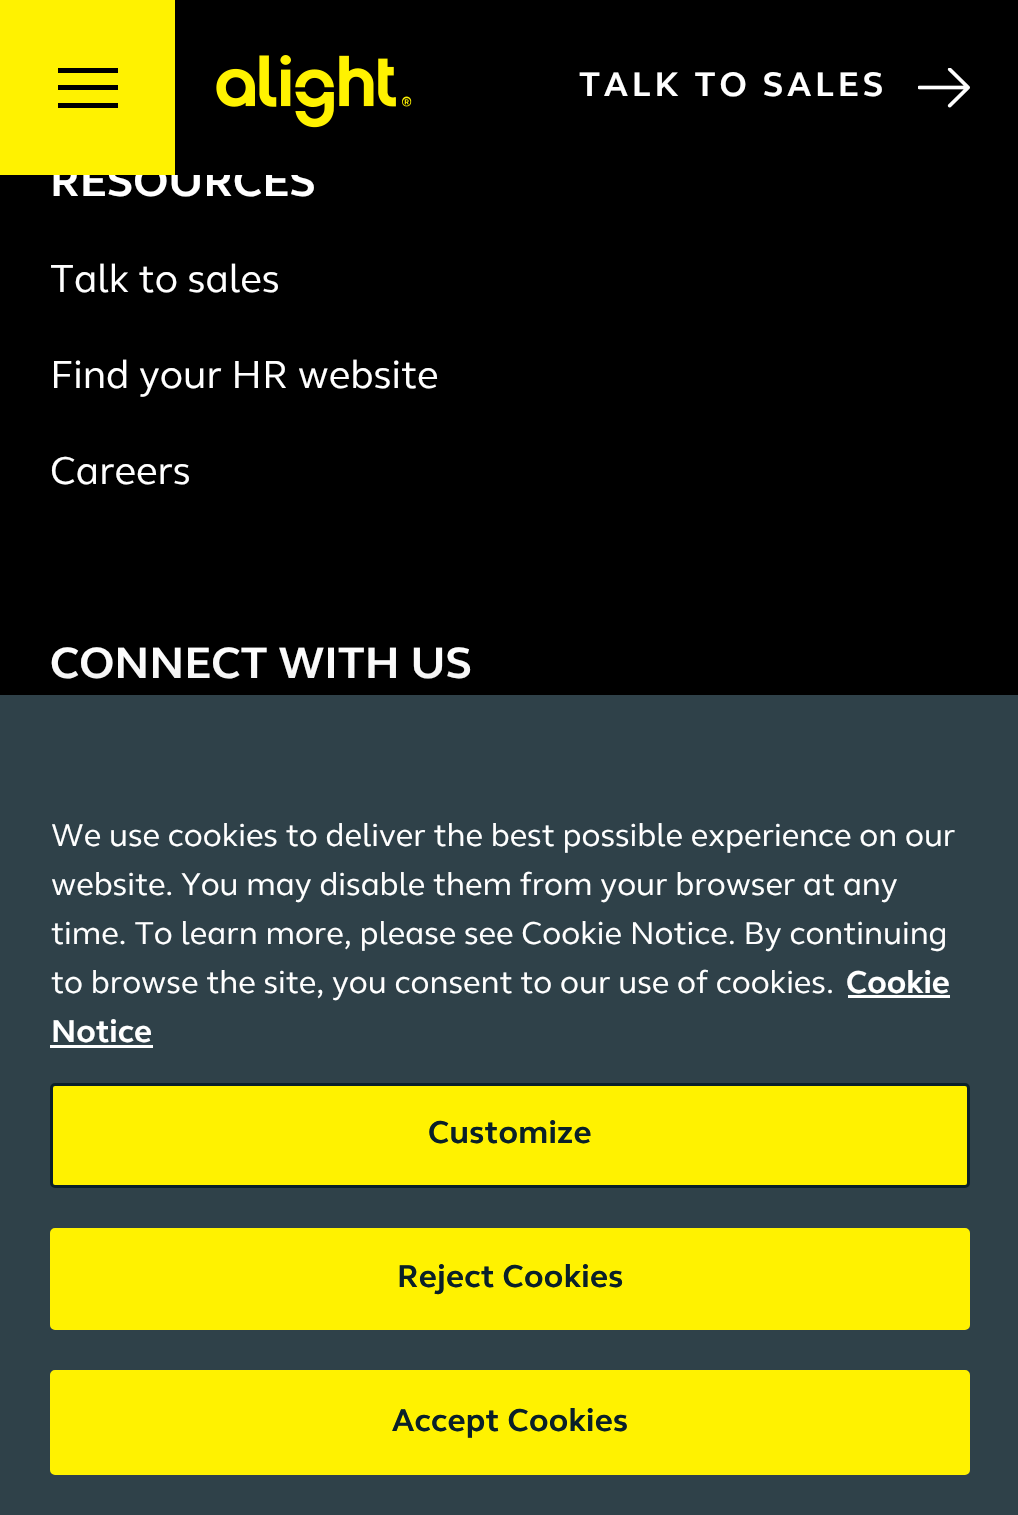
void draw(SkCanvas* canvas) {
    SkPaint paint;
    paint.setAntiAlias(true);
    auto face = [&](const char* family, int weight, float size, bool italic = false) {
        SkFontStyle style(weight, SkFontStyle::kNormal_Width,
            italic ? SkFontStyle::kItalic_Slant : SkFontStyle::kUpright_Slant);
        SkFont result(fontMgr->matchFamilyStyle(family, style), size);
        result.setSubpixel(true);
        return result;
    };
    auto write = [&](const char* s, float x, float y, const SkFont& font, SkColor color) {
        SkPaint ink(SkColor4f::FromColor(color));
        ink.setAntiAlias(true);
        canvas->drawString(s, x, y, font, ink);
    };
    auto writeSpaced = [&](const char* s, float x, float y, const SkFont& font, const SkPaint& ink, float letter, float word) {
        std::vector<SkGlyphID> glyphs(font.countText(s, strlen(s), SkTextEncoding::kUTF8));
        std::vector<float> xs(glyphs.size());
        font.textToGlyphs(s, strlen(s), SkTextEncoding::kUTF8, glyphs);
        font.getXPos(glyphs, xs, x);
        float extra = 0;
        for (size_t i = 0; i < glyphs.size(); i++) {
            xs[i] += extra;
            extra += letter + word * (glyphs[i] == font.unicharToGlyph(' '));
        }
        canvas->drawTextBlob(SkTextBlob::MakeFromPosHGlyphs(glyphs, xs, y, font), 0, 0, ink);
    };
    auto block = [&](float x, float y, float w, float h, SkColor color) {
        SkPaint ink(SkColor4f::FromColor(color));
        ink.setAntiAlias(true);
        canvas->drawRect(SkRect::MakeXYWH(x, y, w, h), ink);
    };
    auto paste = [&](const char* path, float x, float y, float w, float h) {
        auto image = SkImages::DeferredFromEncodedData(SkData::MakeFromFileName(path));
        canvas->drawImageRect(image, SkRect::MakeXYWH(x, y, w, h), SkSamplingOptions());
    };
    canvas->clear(SK_ColorBLACK);
    auto kFont1 = face("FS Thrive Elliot", 700, 45);
    write("RESOURCES", 50, 196, kFont1, SK_ColorWHITE);
    block(175, 165, 138, 10, SK_ColorBLACK);
    block(0, 0, 175, 175, SkColorSetRGB(255, 242, 0));
    block(58, 68, 60, 5, SK_ColorBLACK);
    block(58, 85, 60, 5, SK_ColorBLACK);
    block(58, 103, 60, 5, SK_ColorBLACK);
    paste("pic1.png", 216, 55, 196, 73);
    auto kFont2 = face("FS Thrive Elliot", 700, 35);
    paint.setColor(SK_ColorWHITE);
    writeSpaced("TALK TO SALES", 579, 96, kFont2, paint, 3.9f, 0);
    paste("pic2.png", 918, 68, 52, 40);
    auto kFont3 = face("FS Thrive Elliot", 400, 40);
    write("Talk to sales", 50, 292, kFont3, SK_ColorWHITE);
    write("Find your HR website", 50, 388, kFont3, SK_ColorWHITE);
    write("Careers", 50, 484, kFont3, SK_ColorWHITE);
    write("CONNECT WITH US", 50, 678, kFont1, SK_ColorWHITE);
    paint.setColor(SkColorSetARGB(51, 0, 0, 0));
    paint.setMaskFilter(SkMaskFilter::MakeBlur(kNormal_SkBlurStyle, 22.5f));
    canvas->drawRect(SkRect::MakeXYWH(0, 695, 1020, 820), paint);
    paint.setMaskFilter(nullptr);
    block(0, 695, 1018, 820, SkColorSetRGB(47, 65, 73));
    auto kFont4 = face("FS Thrive Elliot", 400, 32.5f);
    write("We use cookies to deliver the best possible experience on our", 51, 846, kFont4, SK_ColorWHITE);
    write("website. You may disable them from your browser at any", 51, 895, kFont4, SK_ColorWHITE);
    write("time. To learn more, please see Cookie Notice. By continuing", 51, 944, kFont4, SK_ColorWHITE);
    write("to browse the site, you consent to our use of cookies.", 51, 993, kFont4, SK_ColorWHITE);
    auto kFont5 = face("FS Thrive Elliot", 700, 32.5f);
    write("Cookie", 846, 993, kFont5, SK_ColorWHITE);
    block(848, 995, 102, 3, SK_ColorWHITE);
    write("Notice", 51, 1042, kFont5, SK_ColorWHITE);
    block(50, 1045, 103, 3, SK_ColorWHITE);
    paint.setColor(SkColorSetRGB(255, 242, 0));
    canvas->drawRoundRect(SkRect::MakeXYWH(51.5f, 1084.5f, 917, 102), 3.5f, 3.5f, paint);
    paint.setStyle(SkPaint::kStroke_Style);
    paint.setStrokeWidth(3);
    paint.setColor(SkColorSetRGB(10, 32, 41));
    canvas->drawRoundRect(SkRect::MakeXYWH(51.5f, 1084.5f, 917, 102), 3.5f, 3.5f, paint);
    paint.setStyle(SkPaint::kFill_Style);
    writeSpaced("Customize", 428, 1143, kFont5, paint, 0.3f, 0);
    paint.setColor(SkColorSetRGB(255, 242, 0));
    canvas->drawRoundRect(SkRect::MakeXYWH(51.5f, 1229.5f, 917, 99), 3.5f, 3.5f, paint);
    paint.setStyle(SkPaint::kStroke_Style);
    canvas->drawRoundRect(SkRect::MakeXYWH(51.5f, 1229.5f, 917, 99), 3.5f, 3.5f, paint);
    paint.setStyle(SkPaint::kFill_Style);
    paint.setColor(SkColorSetRGB(10, 32, 41));
    writeSpaced("Reject Cookies", 397, 1287, kFont5, paint, 0.3f, 0);
    paint.setColor(SkColorSetRGB(255, 242, 0));
    canvas->drawRoundRect(SkRect::MakeXYWH(51.5f, 1371.5f, 917, 102), 3.5f, 3.5f, paint);
    paint.setStyle(SkPaint::kStroke_Style);
    canvas->drawRoundRect(SkRect::MakeXYWH(51.5f, 1371.5f, 917, 102), 3.5f, 3.5f, paint);
    paint.setStyle(SkPaint::kFill_Style);
    paint.setColor(SkColorSetRGB(10, 32, 41));
    writeSpaced("Accept Cookies", 392, 1431, kFont5, paint, 0.3f, 0);
}
